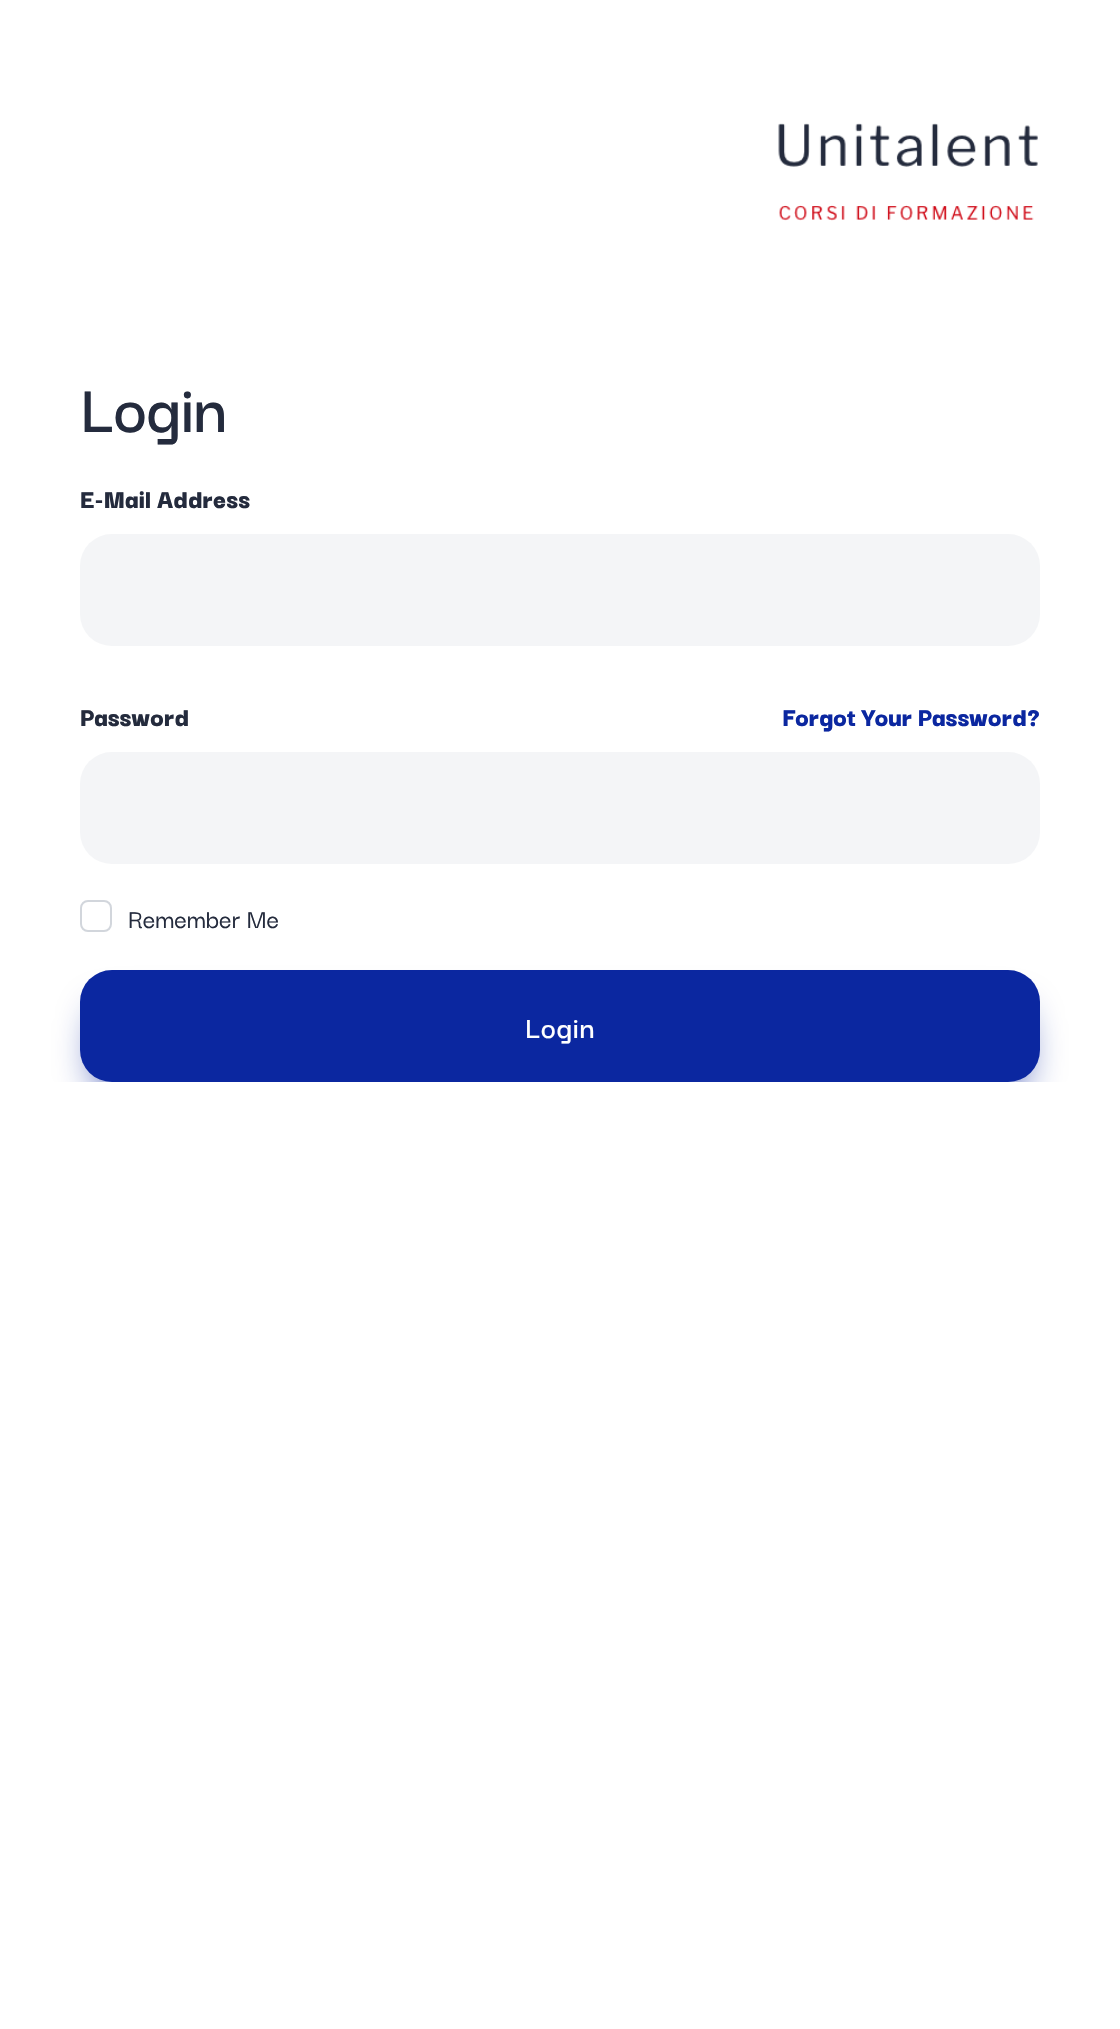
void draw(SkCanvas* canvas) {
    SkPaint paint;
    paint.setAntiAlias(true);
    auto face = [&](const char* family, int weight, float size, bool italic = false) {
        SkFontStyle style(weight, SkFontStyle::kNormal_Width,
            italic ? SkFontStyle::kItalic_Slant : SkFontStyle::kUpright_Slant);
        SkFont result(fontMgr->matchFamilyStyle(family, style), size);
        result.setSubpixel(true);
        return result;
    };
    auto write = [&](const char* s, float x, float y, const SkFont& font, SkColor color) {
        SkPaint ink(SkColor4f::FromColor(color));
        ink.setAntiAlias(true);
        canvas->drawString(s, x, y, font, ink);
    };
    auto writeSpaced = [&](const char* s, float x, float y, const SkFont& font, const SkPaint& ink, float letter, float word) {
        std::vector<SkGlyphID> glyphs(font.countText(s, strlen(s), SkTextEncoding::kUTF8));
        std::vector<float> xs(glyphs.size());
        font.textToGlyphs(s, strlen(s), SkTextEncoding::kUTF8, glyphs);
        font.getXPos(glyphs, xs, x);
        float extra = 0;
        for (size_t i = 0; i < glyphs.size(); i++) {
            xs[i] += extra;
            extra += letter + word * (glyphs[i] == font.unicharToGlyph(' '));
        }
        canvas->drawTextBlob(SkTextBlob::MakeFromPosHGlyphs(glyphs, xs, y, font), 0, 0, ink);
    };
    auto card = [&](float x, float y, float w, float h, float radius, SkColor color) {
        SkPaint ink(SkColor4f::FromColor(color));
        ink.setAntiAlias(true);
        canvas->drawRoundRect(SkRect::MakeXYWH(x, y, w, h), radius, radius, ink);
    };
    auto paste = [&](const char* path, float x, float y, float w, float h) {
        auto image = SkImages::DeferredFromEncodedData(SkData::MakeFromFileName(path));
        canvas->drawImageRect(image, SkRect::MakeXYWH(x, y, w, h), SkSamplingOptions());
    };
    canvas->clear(SK_ColorWHITE);
    paste("pic1.png", 778, 123, 260, 98);
    auto kFont1 = face("Darker Grotesque", 600, 72);
    write("Login", 80, 432, kFont1, SkColorSetRGB(36, 43, 61));
    auto kFont2 = face("Darker Grotesque", 900, 28);
    write("E-Mail Address", 80, 508, kFont2, SkColorSetRGB(36, 43, 61));
    card(80, 534, 960, 112, 32, SkColorSetRGB(244, 245, 247));
    write("Password", 80, 726, kFont2, SkColorSetRGB(36, 43, 61));
    write("Forgot Your Password?", 782, 726, kFont2, SkColorSetRGB(11, 39, 160));
    card(80, 752, 960, 112, 32, SkColorSetRGB(244, 245, 247));
    paint.setStyle(SkPaint::kStroke_Style);
    paint.setStrokeWidth(2);
    paint.setColor(SkColorSetRGB(210, 214, 220));
    canvas->drawRoundRect(SkRect::MakeXYWH(81, 901, 30, 30), 7, 7, paint);
    auto kFont3 = face("Darker Grotesque", 500, 28);
    write("Remember Me", 128, 928, kFont3, SkColorSetRGB(36, 43, 61));
    canvas->save();
    canvas->clipRect(SkRect::MakeXYWH(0, 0, 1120, 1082));
    paint.setStyle(SkPaint::kFill_Style);
    paint.setColor(SkColorSetRGB(11, 39, 160));
    paint.setMaskFilter(SkMaskFilter::MakeBlur(kNormal_SkBlurStyle, 20));
    canvas->drawRoundRect(SkRect::MakeXYWH(100, 1014, 920, 72), 12, 12, paint);
    paint.setMaskFilter(nullptr);
    canvas->restore();
    card(80, 970, 960, 112, 32, SkColorSetRGB(11, 39, 160));
    auto kFont4 = face("Darker Grotesque", 600, 32);
    paint.setColor(SK_ColorWHITE);
    writeSpaced("Login", 525, 1038, kFont4, paint, 1, 0);
}
